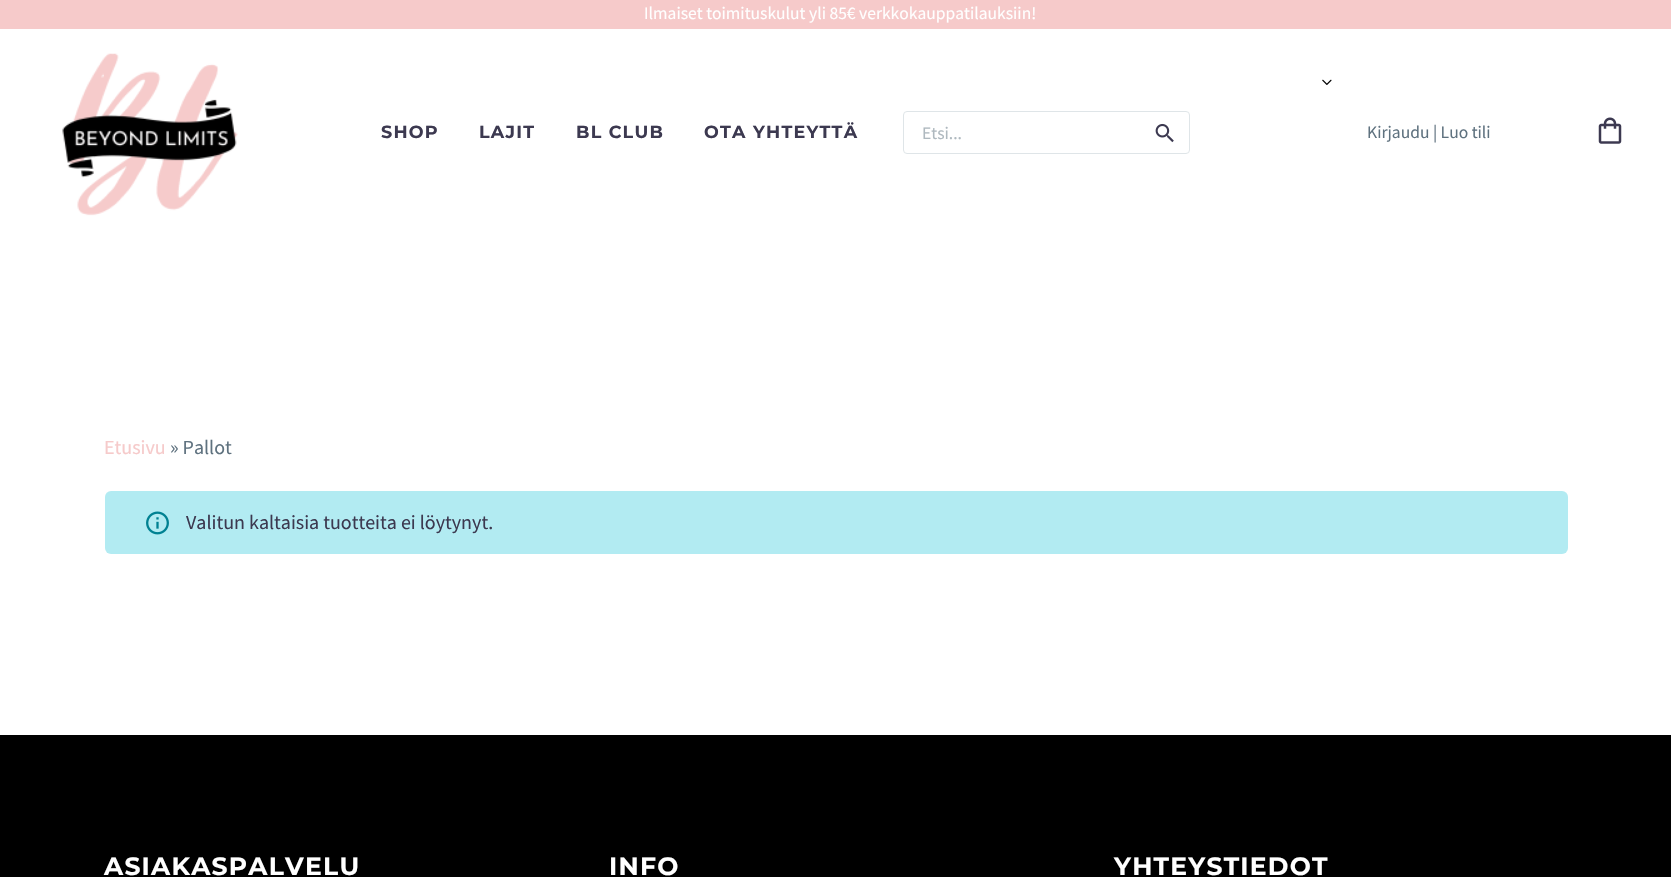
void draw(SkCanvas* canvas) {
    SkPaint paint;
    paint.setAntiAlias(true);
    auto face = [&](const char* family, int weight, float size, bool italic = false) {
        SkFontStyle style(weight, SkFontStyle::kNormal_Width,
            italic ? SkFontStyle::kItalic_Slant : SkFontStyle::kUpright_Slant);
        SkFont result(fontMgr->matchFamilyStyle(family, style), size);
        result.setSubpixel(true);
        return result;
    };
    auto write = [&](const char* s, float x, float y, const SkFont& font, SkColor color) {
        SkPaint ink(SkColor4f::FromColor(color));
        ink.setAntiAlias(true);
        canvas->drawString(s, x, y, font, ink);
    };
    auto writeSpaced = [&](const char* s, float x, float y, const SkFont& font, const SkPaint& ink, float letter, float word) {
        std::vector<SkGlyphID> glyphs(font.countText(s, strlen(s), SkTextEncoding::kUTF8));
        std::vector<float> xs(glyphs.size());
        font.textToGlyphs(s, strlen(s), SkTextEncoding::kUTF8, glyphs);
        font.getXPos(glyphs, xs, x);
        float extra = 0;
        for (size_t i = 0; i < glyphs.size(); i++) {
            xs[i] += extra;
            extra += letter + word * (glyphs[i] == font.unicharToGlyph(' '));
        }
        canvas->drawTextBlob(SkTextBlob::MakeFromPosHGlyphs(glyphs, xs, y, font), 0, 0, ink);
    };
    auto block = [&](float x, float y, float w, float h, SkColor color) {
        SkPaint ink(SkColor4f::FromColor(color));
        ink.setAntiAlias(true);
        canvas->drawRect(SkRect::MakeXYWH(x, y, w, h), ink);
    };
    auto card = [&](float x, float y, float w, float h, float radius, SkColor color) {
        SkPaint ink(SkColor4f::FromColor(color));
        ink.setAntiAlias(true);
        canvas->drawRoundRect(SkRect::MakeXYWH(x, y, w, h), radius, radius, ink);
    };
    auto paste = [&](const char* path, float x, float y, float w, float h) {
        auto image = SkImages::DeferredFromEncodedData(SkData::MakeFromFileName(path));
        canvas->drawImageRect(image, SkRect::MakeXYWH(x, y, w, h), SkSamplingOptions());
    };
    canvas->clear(SK_ColorWHITE);
    block(0, 0, 1671, 29, SkColorSetRGB(246, 202, 202));
    auto kFont1 = face("Source Sans Pro", 400, 17.5f);
    write("Ilmaiset toimituskulut yli 85€ verkkokauppatilauksiin!", 644, 19, kFont1, SK_ColorWHITE);
    paste("pic1.png", 62, 53, 176, 163);
    paste("pic2.png", 1322, 79, 10, 6);
    auto kFont2 = face("Montserrat", 700, 17.5f);
    paint.setColor(SkColorSetRGB(60, 57, 80));
    writeSpaced("SHOP", 381, 138, kFont2, paint, 1.25f, 0);
    writeSpaced("LAJIT", 479, 138, kFont2, paint, 1.25f, 0);
    writeSpaced("BL CLUB", 576, 138, kFont2, paint, 1.25f, 0);
    writeSpaced("OTA YHTEYTTÄ", 704, 138, kFont2, paint, 1.25f, 0);
    paint.setStyle(SkPaint::kStroke_Style);
    paint.setStrokeWidth(1);
    paint.setColor(SkColorSetRGB(223, 229, 232));
    canvas->drawRoundRect(SkRect::MakeXYWH(903.5f, 111.5f, 286, 42), 3.5f, 3.5f, paint);
    write("Etsi...", 922, 139, kFont1, SkColorSetRGB(175, 185, 191));
    paste("pic3.png", 1155, 123, 19, 20);
    write("Kirjaudu | Luo tili", 1367, 138, kFont1, SkColorSetRGB(95, 114, 127));
    paste("pic4.png", 1598, 117, 24, 27);
    auto kFont3 = face("Source Sans Pro", 400, 20);
    write("Etusivu", 104, 454, kFont3, SkColorSetRGB(246, 202, 202));
    write("» Pallot", 170, 454, kFont3, SkColorSetRGB(95, 114, 127));
    card(105, 491, 1463, 63, 6, SkColorSetRGB(178, 235, 242));
    paste("pic5.png", 146, 511, 23, 24);
    write("Valitun kaltaisia tuotteita ei löytynyt.", 186, 529, kFont3, SkColorSetRGB(60, 57, 80));
    block(0, 735, 1671, 142, SK_ColorBLACK);
    auto kFont4 = face("Montserrat", 700, 25);
    paint.setStyle(SkPaint::kFill_Style);
    paint.setColor(SK_ColorWHITE);
    writeSpaced("ASIAKASPALVELU", 104, 875, kFont4, paint, 1.25f, 0);
    writeSpaced("INFO", 609, 875, kFont4, paint, 1.25f, 0);
    writeSpaced("YHTEYSTIEDOT", 1114, 875, kFont4, paint, 1.25f, 0);
}
